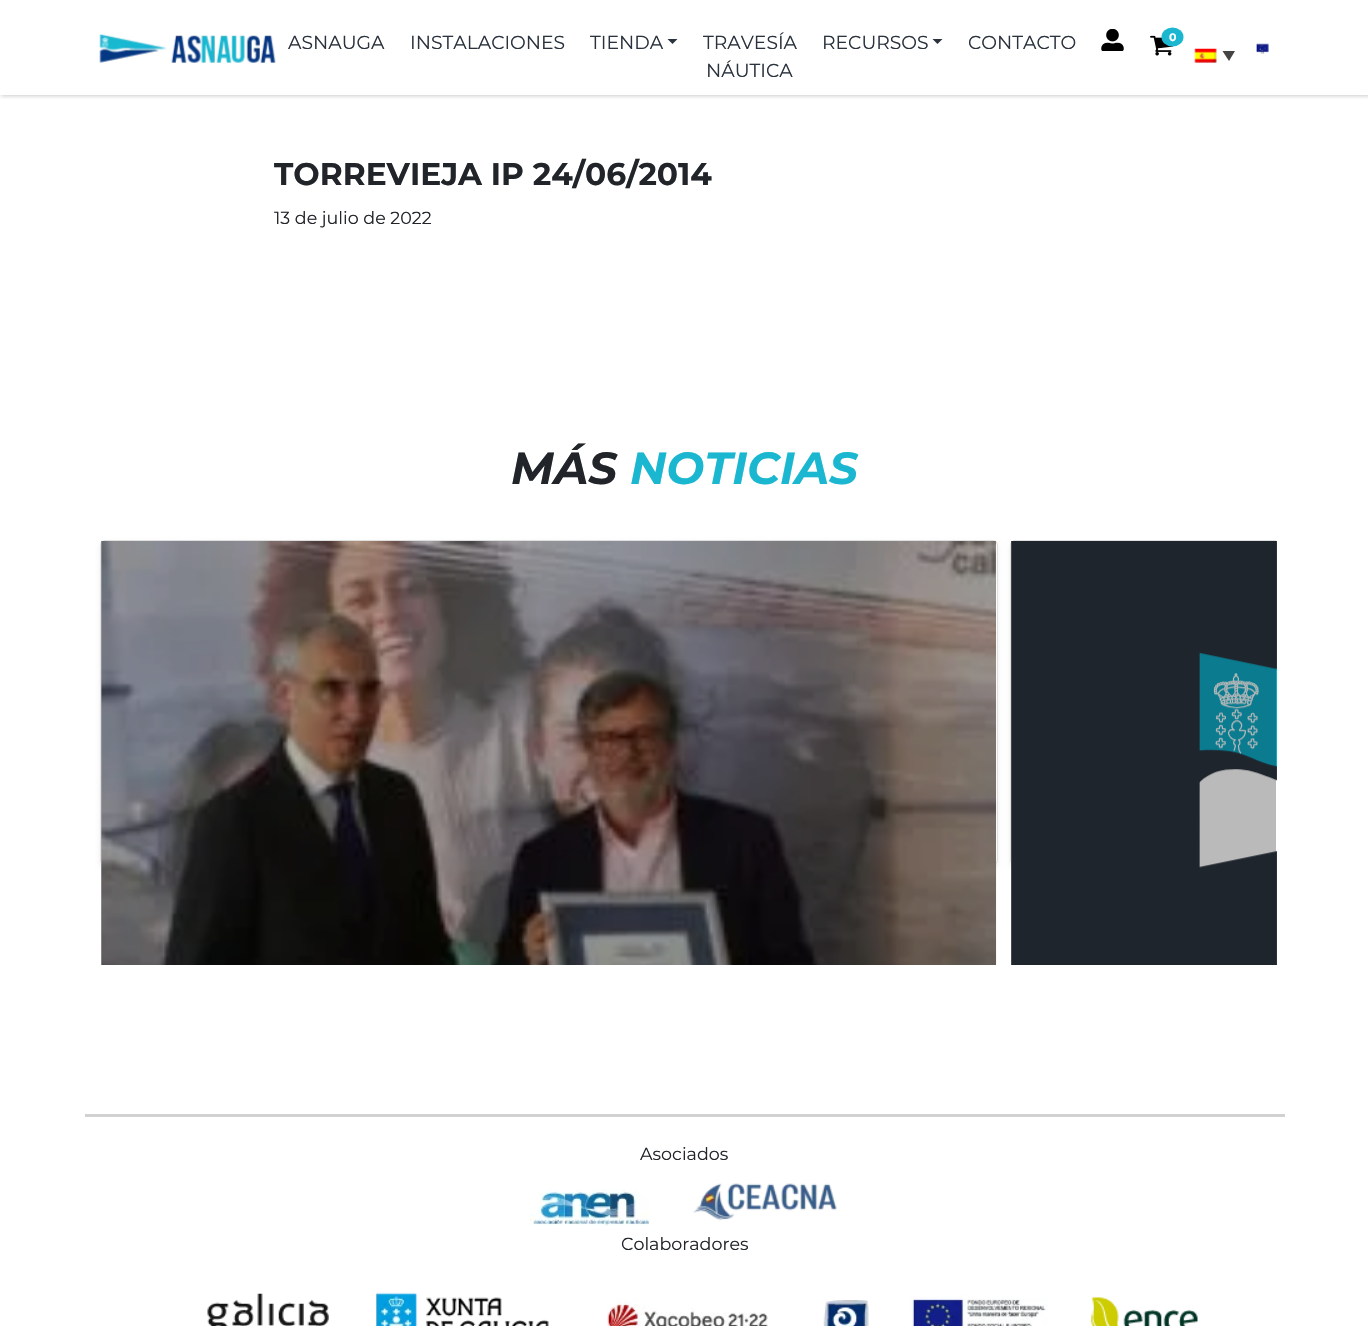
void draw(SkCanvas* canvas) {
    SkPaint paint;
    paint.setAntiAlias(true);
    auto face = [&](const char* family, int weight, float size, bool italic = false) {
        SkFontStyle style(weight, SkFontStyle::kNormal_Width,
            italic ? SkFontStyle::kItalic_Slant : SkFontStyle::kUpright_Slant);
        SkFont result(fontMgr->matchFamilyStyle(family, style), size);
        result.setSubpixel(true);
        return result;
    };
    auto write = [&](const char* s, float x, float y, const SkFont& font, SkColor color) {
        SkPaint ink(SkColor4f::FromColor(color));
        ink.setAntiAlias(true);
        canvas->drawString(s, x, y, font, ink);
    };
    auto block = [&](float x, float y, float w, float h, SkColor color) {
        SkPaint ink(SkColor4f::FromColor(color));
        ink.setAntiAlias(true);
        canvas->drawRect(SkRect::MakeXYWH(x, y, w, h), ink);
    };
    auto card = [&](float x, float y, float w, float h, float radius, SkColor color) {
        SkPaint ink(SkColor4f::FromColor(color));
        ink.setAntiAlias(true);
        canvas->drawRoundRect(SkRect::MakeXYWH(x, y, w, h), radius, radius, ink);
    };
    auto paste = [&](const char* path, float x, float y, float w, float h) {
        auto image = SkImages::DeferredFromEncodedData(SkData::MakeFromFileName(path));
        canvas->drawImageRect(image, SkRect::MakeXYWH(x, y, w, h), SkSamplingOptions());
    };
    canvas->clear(SK_ColorWHITE);
    canvas->save();
    canvas->clipRect(SkRect::MakeXYWH(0, 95, 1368, 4));
    paint.setColor(SkColorSetARGB(51, 0, 0, 0));
    paint.setMaskFilter(SkMaskFilter::MakeBlur(kNormal_SkBlurStyle, 2));
    canvas->drawRect(SkRect::MakeXYWH(1, 1, 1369, 95), paint);
    paint.setMaskFilter(nullptr);
    canvas->restore();
    paste("pic1.png", 99, 34, 177, 29);
    auto kFont1 = face("Montserrat", 100, 18.75f);
    write("ASNAUGA", 288, 49, kFont1, SkColorSetRGB(42, 50, 61));
    write("INSTALACIONES", 410, 49, kFont1, SkColorSetRGB(42, 50, 61));
    write("TIENDA", 590, 49, kFont1, SkColorSetRGB(42, 50, 61));
    paint.setColor(SkColorSetRGB(42, 50, 61));
    canvas->drawPath(SkPathBuilder().moveTo(667.5f, 39).lineTo(677.5f, 39).lineTo(672.5f, 44).close().detach(), paint);
    write("TRAVESÍA", 703, 49, kFont1, SkColorSetRGB(42, 50, 61));
    write("NÁUTICA", 706, 77, kFont1, SkColorSetRGB(42, 50, 61));
    write("RECURSOS", 822, 49, kFont1, SkColorSetRGB(42, 50, 61));
    canvas->drawPath(SkPathBuilder().moveTo(932.5f, 39).lineTo(942.5f, 39).lineTo(937.5f, 44).close().detach(), paint);
    write("CONTACTO", 968, 49, kFont1, SkColorSetRGB(42, 50, 61));
    paste("pic2.png", 1101, 29, 23, 22);
    paste("pic3.png", 1150, 35, 23, 21);
    paint.setColor(SkColorSetRGB(27, 183, 208));
    canvas->drawOval(SkRect::MakeXYWH(1161.5f, 27.5f, 22, 19), paint);
    auto kFont2 = face("Montserrat", 700, 11);
    write("0", 1169, 41, kFont2, SK_ColorWHITE);
    paste("pic4.png", 1194, 48, 23, 15);
    paint.setColor(SkColorSetRGB(68, 68, 68));
    canvas->drawPath(SkPathBuilder().moveTo(1222.5f, 51).lineTo(1235, 51).lineTo(1229, 61).close().detach(), paint);
    paste("pic5.png", 1256, 43, 13, 11);
    auto kFont3 = face("Montserrat", 700, 31.25f);
    write("TORREVIEJA IP 24/06/2014", 274, 185, kFont3, SkColorSetRGB(33, 37, 41));
    auto kFont4 = face("Montserrat", 100, 17.5f);
    write("13 de julio de 2022", 274, 224, kFont4, SkColorSetRGB(33, 37, 41));
    auto kFont5 = face("Montserrat", 700, 45, true);
    write("MÁS", 511, 484, kFont5, SkColorSetRGB(33, 37, 41));
    write("NOTICIAS", 630, 484, kFont5, SkColorSetRGB(27, 183, 208));
    paint.setColor(SkColorSetARGB(18, 0, 0, 0));
    paint.setMaskFilter(SkMaskFilter::MakeBlur(kNormal_SkBlurStyle, 2.5f));
    canvas->drawRoundRect(SkRect::MakeXYWH(100, 543, 898, 325), 5, 5, paint);
    paint.setMaskFilter(nullptr);
    card(100, 540, 898, 325, 5, SK_ColorWHITE);
    paint.setStyle(SkPaint::kStroke_Style);
    paint.setStrokeWidth(1);
    paint.setColor(SkColorSetARGB(31, 0, 0, 0));
    canvas->drawRoundRect(SkRect::MakeXYWH(100.5f, 540.5f, 897, 324), 4.5f, 4.5f, paint);
    block(101, 541, 1, 424, SkColorSetRGB(250, 250, 250));
    paste("pic6.png", 101, 541, 896, 424);
    block(101, 541, 895, 424, SkColorSetARGB(69, 0, 0, 0));
    canvas->save();
    canvas->clipRect(SkRect::MakeXYWH(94, 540, 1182, 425));
    paint.setStyle(SkPaint::kFill_Style);
    paint.setColor(SkColorSetARGB(18, 0, 0, 0));
    paint.setMaskFilter(SkMaskFilter::MakeBlur(kNormal_SkBlurStyle, 2.5f));
    canvas->drawRoundRect(SkRect::MakeXYWH(1010, 543, 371, 325), 5, 5, paint);
    paint.setMaskFilter(nullptr);
    canvas->restore();
    paint.setColor(SK_ColorWHITE);
    canvas->drawPath(SkPathBuilder().moveTo(1015, 540).lineTo(1276, 540).lineTo(1276, 865).lineTo(1015, 865).cubicTo(1012, 865, 1010, 863, 1010, 860).lineTo(1010, 545).cubicTo(1010, 542, 1012, 540, 1015, 540).close().detach(), paint);
    canvas->save();
    canvas->clipRect(SkRect::MakeXYWH(94, 540, 1182, 425));
    paint.setStyle(SkPaint::kStroke_Style);
    paint.setColor(SkColorSetARGB(31, 0, 0, 0));
    canvas->drawRoundRect(SkRect::MakeXYWH(1010.5f, 540.5f, 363, 324), 4.5f, 4.5f, paint);
    canvas->restore();
    paste("pic7.png", 1011, 541, 266, 424);
    block(1011, 541, 265, 424, SkColorSetARGB(69, 0, 0, 0));
    block(85, 1114, 1200, 3, SkColorSetRGB(209, 209, 209));
    write("Asociados", 640, 1160, kFont4, SkColorSetRGB(33, 37, 41));
    paste("pic8.png", 530, 1189, 120, 37);
    paste("pic9.png", 693, 1183, 144, 38);
    write("Colaboradores", 621, 1250, kFont4, SkColorSetRGB(33, 37, 41));
    paste("pic10.png", 207, 1293, 122, 33);
    paste("pic11.png", 376, 1292, 173, 34);
    paste("pic12.png", 607, 1298, 161, 28);
    paste("pic13.png", 823, 1300, 46, 26);
    paste("pic14.png", 910, 1295, 138, 31);
    paste("pic15.png", 1091, 1297, 107, 29);
}
